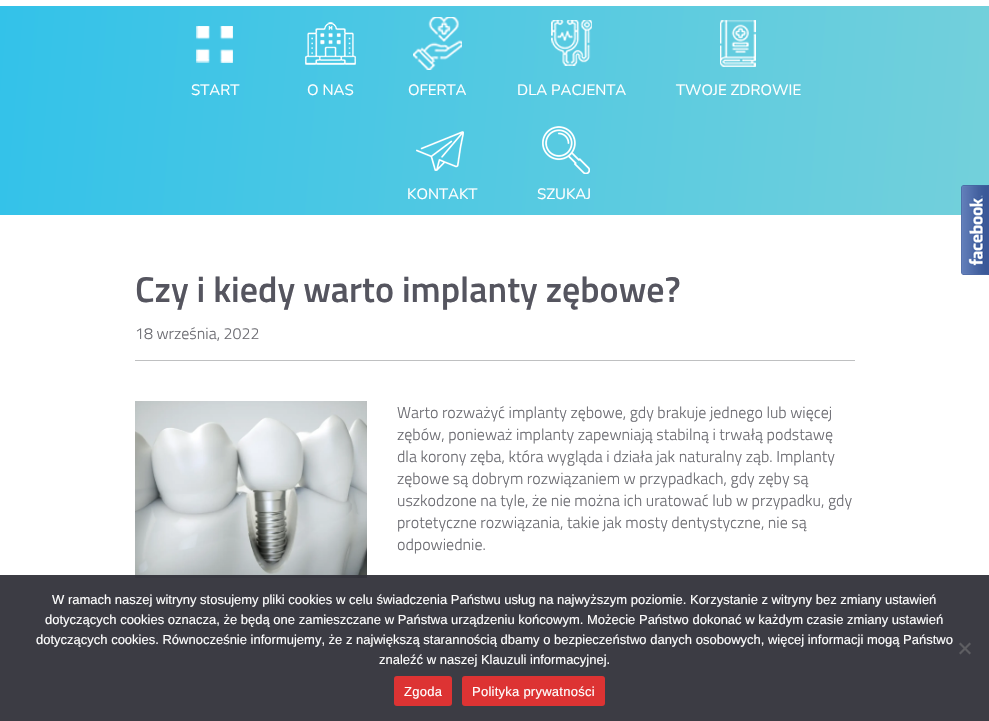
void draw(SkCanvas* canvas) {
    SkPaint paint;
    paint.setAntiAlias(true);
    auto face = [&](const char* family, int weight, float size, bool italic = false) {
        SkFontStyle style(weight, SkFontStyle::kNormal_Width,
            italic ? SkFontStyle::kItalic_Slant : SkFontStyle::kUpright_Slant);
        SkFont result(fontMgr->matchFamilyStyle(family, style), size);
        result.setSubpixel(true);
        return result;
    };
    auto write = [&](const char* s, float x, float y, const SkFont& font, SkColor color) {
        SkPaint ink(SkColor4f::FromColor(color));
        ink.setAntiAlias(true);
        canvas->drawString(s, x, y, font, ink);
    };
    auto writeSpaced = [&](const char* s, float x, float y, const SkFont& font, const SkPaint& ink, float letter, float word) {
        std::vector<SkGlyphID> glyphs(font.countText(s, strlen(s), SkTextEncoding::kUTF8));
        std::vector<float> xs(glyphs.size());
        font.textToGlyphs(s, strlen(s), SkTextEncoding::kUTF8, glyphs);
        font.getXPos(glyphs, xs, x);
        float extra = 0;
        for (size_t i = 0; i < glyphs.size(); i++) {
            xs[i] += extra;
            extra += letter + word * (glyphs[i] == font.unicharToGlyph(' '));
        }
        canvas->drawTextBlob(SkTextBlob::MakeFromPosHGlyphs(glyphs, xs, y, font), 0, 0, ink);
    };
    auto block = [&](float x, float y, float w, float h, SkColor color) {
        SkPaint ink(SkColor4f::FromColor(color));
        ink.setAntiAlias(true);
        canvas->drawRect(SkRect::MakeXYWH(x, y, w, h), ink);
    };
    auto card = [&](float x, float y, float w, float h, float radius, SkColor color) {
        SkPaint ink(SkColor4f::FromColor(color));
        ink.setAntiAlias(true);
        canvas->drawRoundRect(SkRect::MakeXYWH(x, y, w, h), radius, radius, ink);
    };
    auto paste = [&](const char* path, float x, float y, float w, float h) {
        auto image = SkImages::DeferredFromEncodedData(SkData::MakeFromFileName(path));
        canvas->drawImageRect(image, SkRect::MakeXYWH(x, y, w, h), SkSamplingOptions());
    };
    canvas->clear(SK_ColorWHITE);
    {
        const SkColor colors[] = {SkColorSetRGB(115, 208, 219), SkColorSetRGB(51, 194, 233)};
        const float stops[] = {0, 1};
        const SkPoint ends[] = {{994, 154}, {-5.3f, 67}};
        paint.setShader(SkGradientShader::MakeLinear(ends, colors, stops, 2, SkTileMode::kClamp));
        paint.setAlpha(255);
    }
    canvas->drawRect(SkRect::MakeXYWH(0, 6, 989, 209), paint);
    paste("pic1.png", 196, 26, 37, 37);
    auto kFont1 = face("Nunito", 400, 15);
    write("START", 191, 95, kFont1, SK_ColorWHITE);
    paste("pic2.png", 305, 22, 51, 43);
    write("O NAS", 307, 95, kFont1, SK_ColorWHITE);
    paste("pic3.png", 413, 17, 49, 53);
    write("OFERTA", 408, 95, kFont1, SK_ColorWHITE);
    paste("pic4.png", 551, 20, 41, 46);
    write("DLA PACJENTA", 517, 95, kFont1, SK_ColorWHITE);
    paste("pic5.png", 720, 20, 36, 47);
    write("TWOJE ZDROWIE", 676, 95, kFont1, SK_ColorWHITE);
    paste("pic6.png", 416, 131, 48, 40);
    write("KONTAKT", 407, 199, kFont1, SK_ColorWHITE);
    paste("pic7.png", 542, 126, 48, 48);
    write("SZUKAJ", 537, 199, kFont1, SK_ColorWHITE);
    auto kFont2 = face("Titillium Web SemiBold", 600, 36);
    write("Czy i kiedy warto implanty zębowe?", 135, 302, kFont2, SkColorSetRGB(85, 85, 95));
    auto kFont3 = face("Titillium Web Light", 300, 16);
    write("18 września, 2022", 135, 339, kFont3, SkColorSetRGB(108, 108, 114));
    block(135, 360, 720, 1, SkColorSetRGB(191, 192, 193));
    paste("pic8.png", 135, 401, 232, 177);
    write("Warto rozważyć implanty zębowe, gdy brakuje jednego lub więcej", 397, 418, kFont3, SkColorSetRGB(108, 108, 114));
    write("zębów, ponieważ implanty zapewniają stabilną i trwałą podstawę", 397, 440, kFont3, SkColorSetRGB(108, 108, 114));
    write("dla korony zęba, która wygląda i działa jak naturalny ząb. Implanty", 397, 462, kFont3, SkColorSetRGB(108, 108, 114));
    write("zębowe są dobrym rozwiązaniem w przypadkach, gdy zęby są", 397, 484, kFont3, SkColorSetRGB(108, 108, 114));
    write("uszkodzone na tyle, że nie można ich uratować lub w przypadku, gdy", 397, 506, kFont3, SkColorSetRGB(108, 108, 114));
    write("protetyczne rozwiązania, takie jak mosty dentystyczne, nie są", 397, 528, kFont3, SkColorSetRGB(108, 108, 114));
    write("odpowiednie.", 397, 550, kFont3, SkColorSetRGB(108, 108, 114));
    paste("pic9.png", 961, 185, 28, 90);
    block(0, 575, 989, 146, SkColorSetARGB(242, 50, 50, 58));
    auto kFont4 = face("Liberation Sans", 400, 13);
    write("W ramach naszej witryny stosujemy pliki cookies w celu świadczenia Państwu usług na najwyższym poziomie. Korzystanie z witryny bez zmiany ustawień", 52, 604, kFont4, SK_ColorWHITE);
    write("dotyczących cookies oznacza, że będą one zamieszczane w Państwa urządzeniu końcowym. Możecie Państwo dokonać w każdym czasie zmiany ustawień", 45, 624, kFont4, SK_ColorWHITE);
    write("dotyczących cookies. Równocześnie informujemy, że z największą starannością dbamy o bezpieczeństwo danych osobowych, więcej informacji mogą Państwo", 36, 644, kFont4, SK_ColorWHITE);
    write("znaleźć w naszej Klauzuli informacyjnej.", 379, 664, kFont4, SK_ColorWHITE);
    paint.setShader(nullptr);
    paint.setColor(SkColorSetRGB(94, 94, 98));
    canvas->drawPath(SkPathBuilder().moveTo(969.5f, 642.5f).lineTo(971, 644).lineTo(960.5f, 654.5f).lineTo(959, 653).close().detach(), paint);
    canvas->drawPath(SkPathBuilder().moveTo(959, 644).lineTo(960.5f, 642.5f).lineTo(971, 653).lineTo(969.5f, 654.5f).close().detach(), paint);
    card(394, 676, 58, 30, 3, SkColorSetRGB(221, 51, 51));
    paint.setColor(SK_ColorWHITE);
    writeSpaced("Zgoda", 404, 696, kFont4, paint, 0.25f, 0);
    card(462, 676, 143, 30, 3, SkColorSetRGB(221, 51, 51));
    writeSpaced("Polityka prywatności", 472, 696, kFont4, paint, 0.25f, 0);
}
